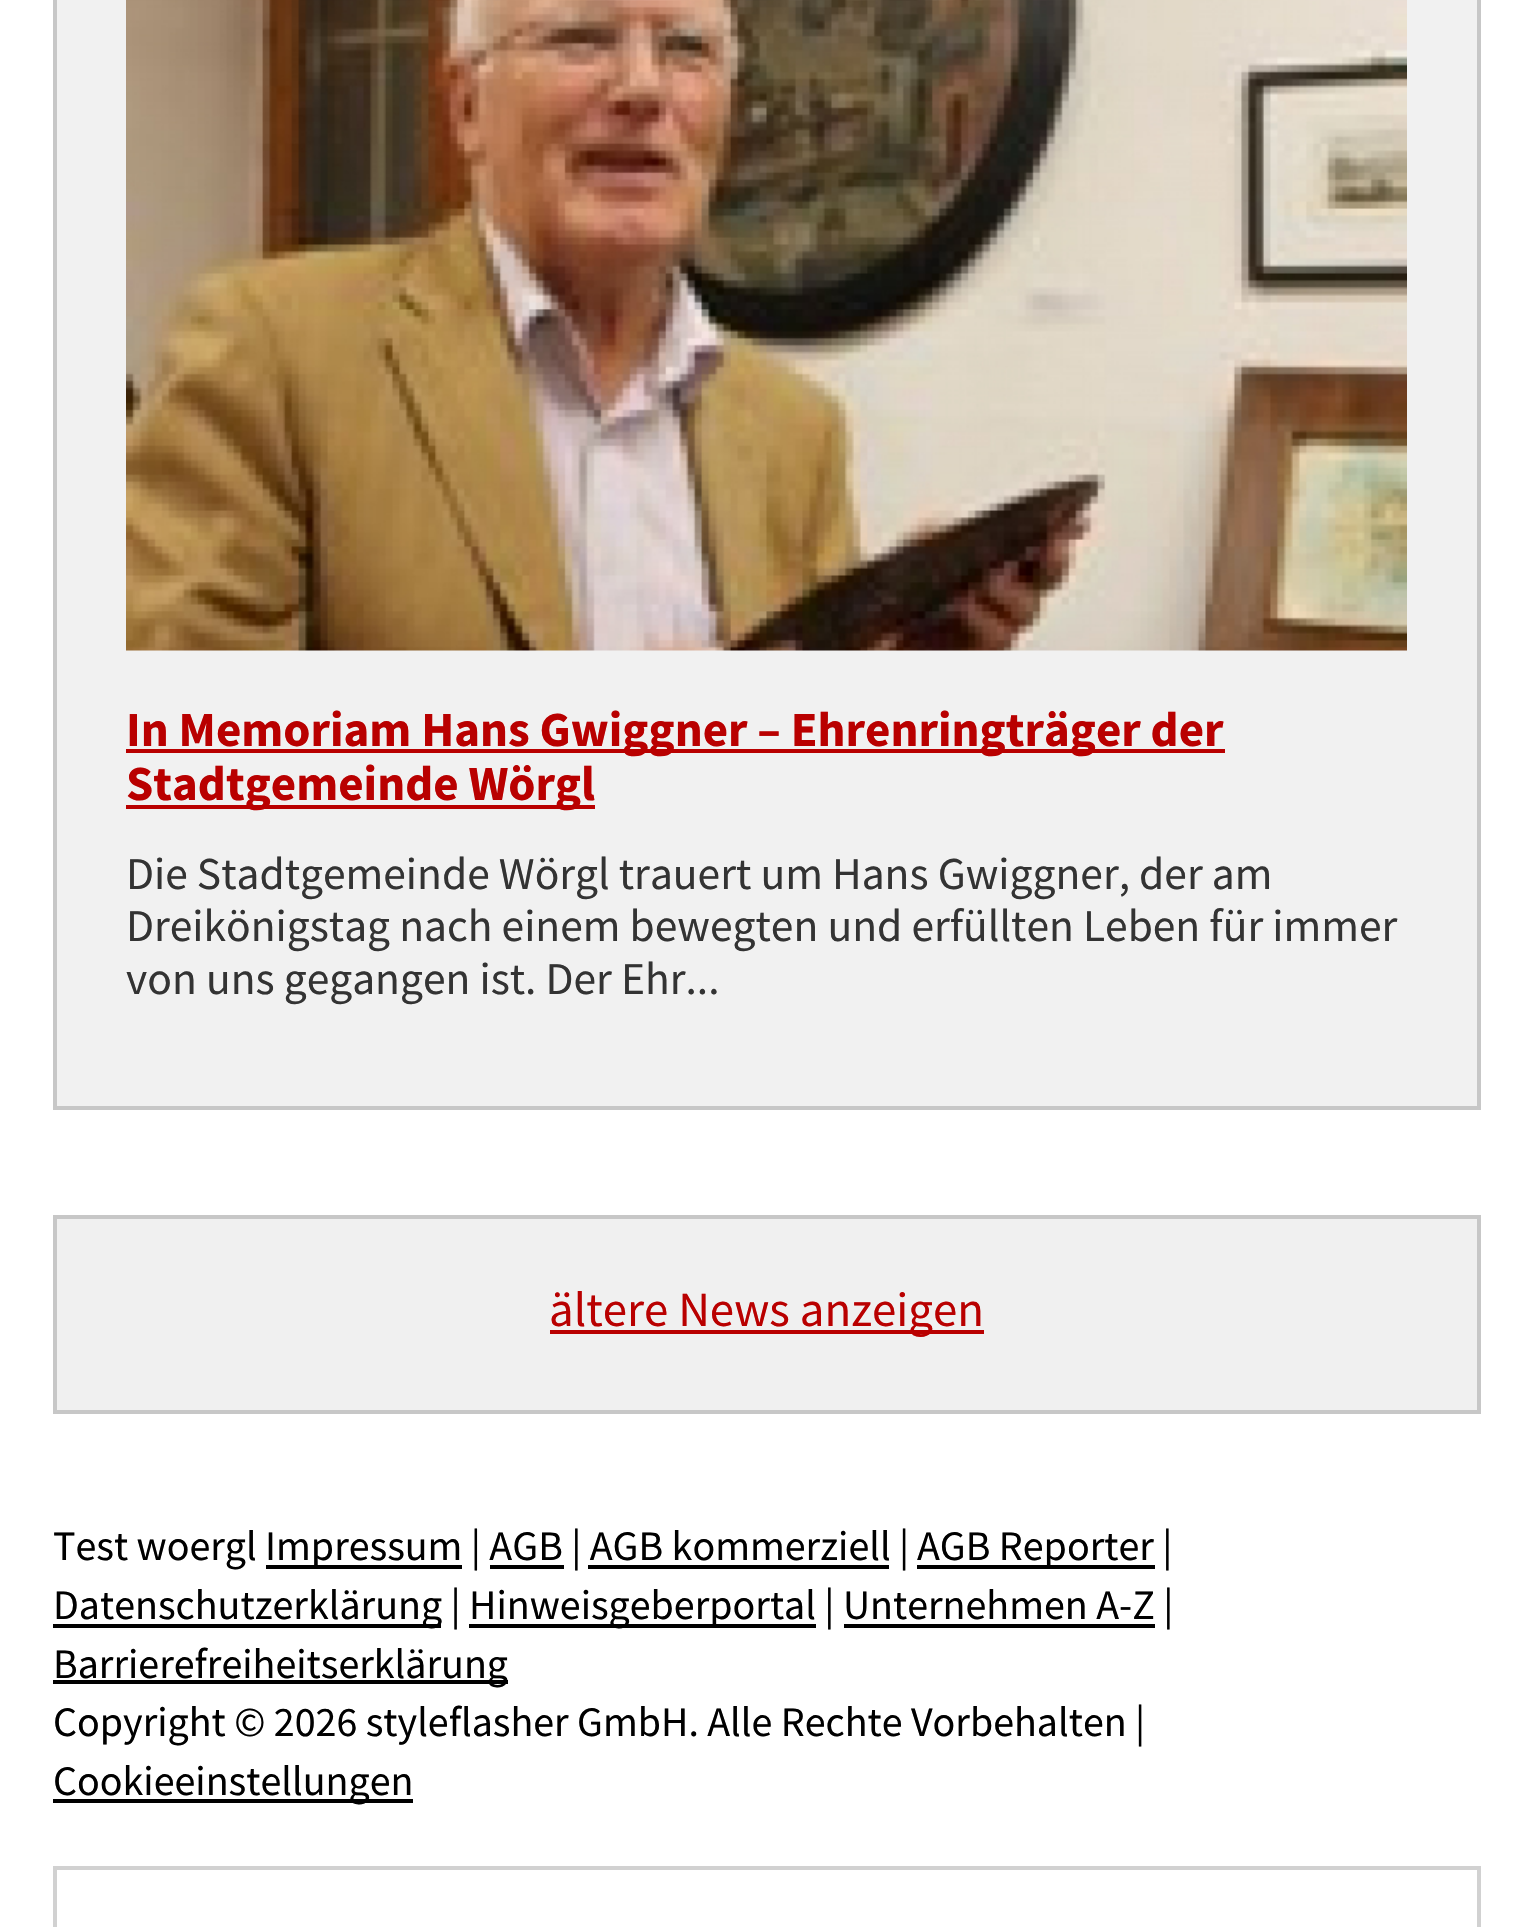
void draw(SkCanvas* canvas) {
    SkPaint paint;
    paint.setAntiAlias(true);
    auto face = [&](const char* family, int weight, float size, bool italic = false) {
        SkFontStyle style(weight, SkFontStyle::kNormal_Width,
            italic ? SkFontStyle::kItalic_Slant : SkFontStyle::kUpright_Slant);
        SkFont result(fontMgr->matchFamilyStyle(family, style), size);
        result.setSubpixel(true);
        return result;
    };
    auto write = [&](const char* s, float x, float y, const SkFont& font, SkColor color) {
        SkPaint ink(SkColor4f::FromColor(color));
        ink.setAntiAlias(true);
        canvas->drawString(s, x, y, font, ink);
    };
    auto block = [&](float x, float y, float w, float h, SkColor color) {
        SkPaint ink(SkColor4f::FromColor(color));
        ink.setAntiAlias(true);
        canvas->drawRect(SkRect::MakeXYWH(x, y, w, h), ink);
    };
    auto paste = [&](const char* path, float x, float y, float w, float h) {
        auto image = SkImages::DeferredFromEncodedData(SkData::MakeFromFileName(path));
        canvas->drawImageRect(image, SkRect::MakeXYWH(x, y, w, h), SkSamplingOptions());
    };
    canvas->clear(SK_ColorWHITE);
    paint.setColor(SkColorSetRGB(241, 241, 241));
    canvas->drawRect(SkRect::MakeXYWH(55, -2, 1424, 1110), paint);
    paint.setStyle(SkPaint::kStroke_Style);
    paint.setStrokeWidth(4);
    paint.setColor(SkColorSetRGB(199, 199, 199));
    canvas->drawRect(SkRect::MakeXYWH(55, -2, 1424, 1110), paint);
    paste("pic1.png", 126, 0, 1281, 651);
    block(126, 749, 1099, 4, SkColorSetRGB(185, 0, 0));
    auto kFont1 = face("Source Sans Pro", 700, 49);
    write("In Memoriam Hans Gwiggner – Ehrenringträger der", 126, 746, kFont1, SkColorSetRGB(185, 0, 0));
    block(126, 805, 469, 4, SkColorSetRGB(185, 0, 0));
    write("Stadtgemeinde Wörgl", 126, 800, kFont1, SkColorSetRGB(185, 0, 0));
    auto kFont2 = face("Source Sans Pro", 400, 45.5f);
    write("Die Stadtgemeinde Wörgl trauert um Hans Gwiggner, der am", 126, 889, kFont2, SkColorSetRGB(51, 51, 51));
    write("Dreikönigstag nach einem bewegten und erfüllten Leben für immer", 126, 941, kFont2, SkColorSetRGB(51, 51, 51));
    write("von uns gegangen ist. Der Ehr...", 126, 994, kFont2, SkColorSetRGB(51, 51, 51));
    paint.setStyle(SkPaint::kFill_Style);
    paint.setColor(SkColorSetRGB(240, 240, 240));
    canvas->drawRect(SkRect::MakeXYWH(55, 1217, 1424, 195), paint);
    paint.setStyle(SkPaint::kStroke_Style);
    paint.setColor(SkColorSetRGB(199, 199, 199));
    canvas->drawRect(SkRect::MakeXYWH(55, 1217, 1424, 195), paint);
    block(550, 1330, 434, 4, SkColorSetRGB(185, 0, 0));
    auto kFont3 = face("Source Sans Pro", 400, 49);
    write("ältere News anzeigen", 549, 1326, kFont3, SkColorSetRGB(185, 0, 0));
    auto kFont4 = face("Source Sans Pro", 400, 42);
    write("Test woergl", 53, 1560, kFont4, SK_ColorBLACK);
    block(266, 1565, 196, 4, SK_ColorBLACK);
    write("Impressum | AGB | AGB kommerziell |", 265, 1560, kFont4, SK_ColorBLACK);
    block(917, 1565, 238, 4, SK_ColorBLACK);
    write("AGB Reporter |", 917, 1560, kFont4, SK_ColorBLACK);
    block(490, 1565, 74, 4, SK_ColorBLACK);
    block(588, 1565, 301, 4, SK_ColorBLACK);
    block(53, 1624, 388, 4, SK_ColorBLACK);
    write("Datenschutzerklärung |", 53, 1619, kFont4, SK_ColorBLACK);
    block(469, 1624, 347, 4, SK_ColorBLACK);
    write("Hinweisgeberportal | Unternehmen A-Z |", 469, 1619, kFont4, SK_ColorBLACK);
    block(844, 1624, 311, 4, SK_ColorBLACK);
    block(53, 1680, 455, 4, SK_ColorBLACK);
    write("Barrierefreiheitserklärung", 53, 1678, kFont4, SK_ColorBLACK);
    write("Copyright © 2026 styleflasher GmbH. Alle Rechte Vorbehalten |", 53, 1736, kFont4, SK_ColorBLACK);
    block(53, 1799, 360, 4, SK_ColorBLACK);
    write("Cookieeinstellungen", 53, 1795, kFont4, SK_ColorBLACK);
    paint.setColor(SkColorSetRGB(209, 209, 209));
    canvas->drawRect(SkRect::MakeXYWH(55, 1868, 1424, 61), paint);
}
